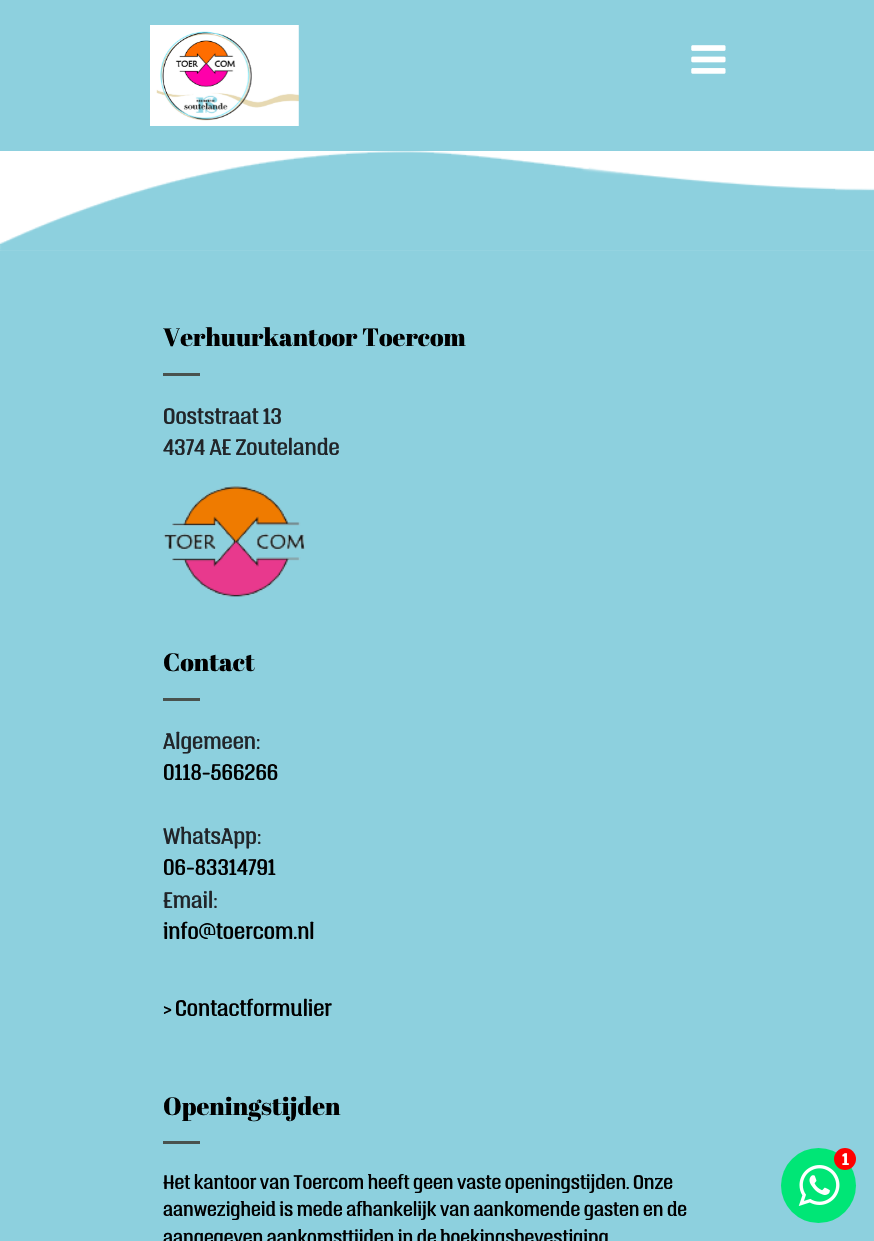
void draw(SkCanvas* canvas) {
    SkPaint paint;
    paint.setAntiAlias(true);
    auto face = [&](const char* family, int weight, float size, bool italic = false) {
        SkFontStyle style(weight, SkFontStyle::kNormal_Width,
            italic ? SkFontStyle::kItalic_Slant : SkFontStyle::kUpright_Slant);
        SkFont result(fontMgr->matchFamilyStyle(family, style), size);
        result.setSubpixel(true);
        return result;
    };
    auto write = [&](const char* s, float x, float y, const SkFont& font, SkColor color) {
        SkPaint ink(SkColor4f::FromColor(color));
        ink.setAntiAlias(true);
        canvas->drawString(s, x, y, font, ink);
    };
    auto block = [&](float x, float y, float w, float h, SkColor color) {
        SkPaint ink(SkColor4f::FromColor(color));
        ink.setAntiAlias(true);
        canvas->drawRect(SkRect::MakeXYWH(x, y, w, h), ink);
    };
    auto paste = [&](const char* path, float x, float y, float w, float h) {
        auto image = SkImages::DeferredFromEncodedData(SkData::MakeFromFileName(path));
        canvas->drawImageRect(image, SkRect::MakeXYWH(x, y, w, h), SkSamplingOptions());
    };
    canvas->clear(SK_ColorWHITE);
    block(0, 0, 874, 151, SkColorSetRGB(141, 208, 222));
    paste("pic1.png", 150, 25, 149, 101);
    paste("pic2.png", 691, 45, 35, 29);
    paste("pic3.png", 0, 151, 874, 100);
    block(0, 251, 874, 990, SkColorSetRGB(141, 208, 222));
    auto kFont1 = face("Abril Fatface", 400, 25);
    write("Verhuurkantoor Toercom", 163, 346, kFont1, SK_ColorBLACK);
    block(163, 373, 37, 3, SkColorSetRGB(73, 82, 78));
    auto kFont2 = face("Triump", 400, 20);
    write("Ooststraat 13", 163, 424, kFont2, SkColorSetRGB(33, 37, 41));
    write("4374 AE Zoutelande", 163, 455, kFont2, SkColorSetRGB(33, 37, 41));
    paste("pic4.png", 163, 486, 142, 111);
    write("Contact", 163, 671, kFont1, SK_ColorBLACK);
    block(163, 698, 37, 3, SkColorSetRGB(73, 82, 78));
    write("Algemeen:", 163, 749, kFont2, SkColorSetRGB(33, 37, 41));
    write("0118-566266", 163, 780, kFont2, SK_ColorBLACK);
    write("WhatsApp:", 163, 844, kFont2, SkColorSetRGB(33, 37, 41));
    write("06-83314791", 163, 875, kFont2, SK_ColorBLACK);
    write("Email:", 163, 908, kFont2, SkColorSetRGB(33, 37, 41));
    write("info@toercom.nl", 163, 939, kFont2, SK_ColorBLACK);
    auto kFont3 = face("Triump", 400, 17.5f);
    write(">", 163, 1016, kFont3, SK_ColorBLACK);
    write("Contactformulier", 175, 1016, kFont2, SK_ColorBLACK);
    write("Openingstijden", 163, 1115, kFont1, SK_ColorBLACK);
    block(163, 1141, 37, 3, SkColorSetRGB(73, 82, 78));
    write("Het kantoor van Toercom heeft geen vaste openingstijden. Onze", 163, 1189, kFont3, SK_ColorBLACK);
    write("aanwezigheid is mede afhankelijk van aankomende gasten en de", 163, 1216, kFont3, SK_ColorBLACK);
    write("aangegeven aankomsttijden in de boekingsbevestiging", 163, 1244, kFont3, SK_ColorBLACK);
    paint.setColor(SkColorSetRGB(0, 230, 118));
    canvas->drawCircle(818.5f, 1185.5f, 37.5f, paint);
    paste("pic5.png", 798, 1165, 42, 41);
    paint.setColor(SkColorSetRGB(255, 0, 0));
    canvas->drawCircle(845, 1159, 11, paint);
    auto kFont4 = face("Triump", 700, 15);
    write("1", 842, 1165, kFont4, SK_ColorWHITE);
}
